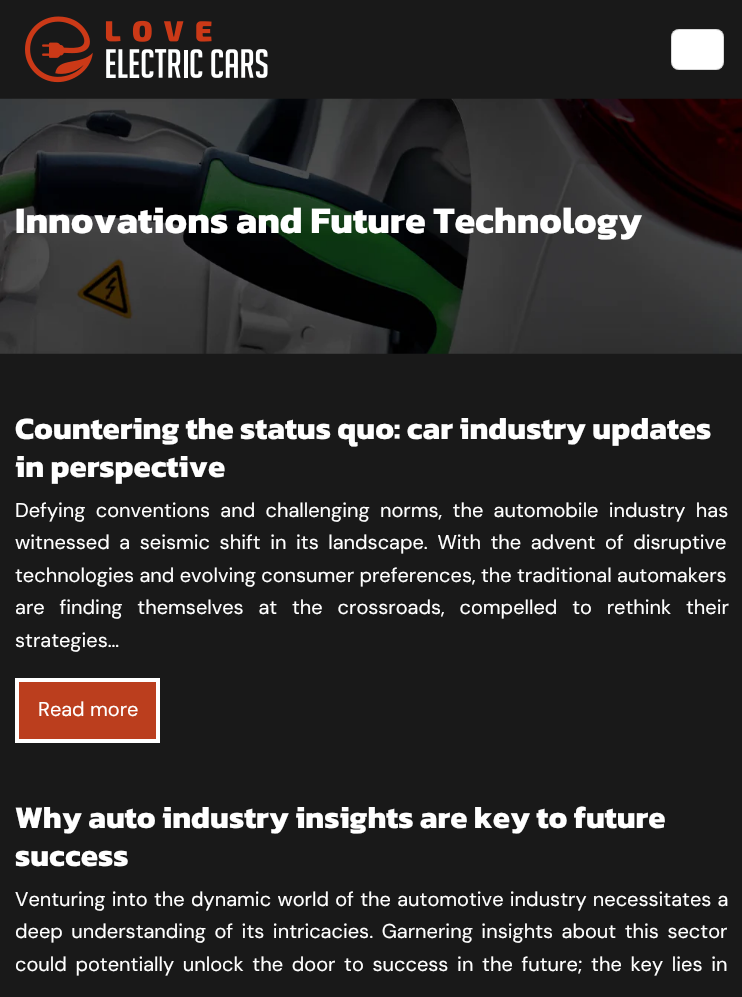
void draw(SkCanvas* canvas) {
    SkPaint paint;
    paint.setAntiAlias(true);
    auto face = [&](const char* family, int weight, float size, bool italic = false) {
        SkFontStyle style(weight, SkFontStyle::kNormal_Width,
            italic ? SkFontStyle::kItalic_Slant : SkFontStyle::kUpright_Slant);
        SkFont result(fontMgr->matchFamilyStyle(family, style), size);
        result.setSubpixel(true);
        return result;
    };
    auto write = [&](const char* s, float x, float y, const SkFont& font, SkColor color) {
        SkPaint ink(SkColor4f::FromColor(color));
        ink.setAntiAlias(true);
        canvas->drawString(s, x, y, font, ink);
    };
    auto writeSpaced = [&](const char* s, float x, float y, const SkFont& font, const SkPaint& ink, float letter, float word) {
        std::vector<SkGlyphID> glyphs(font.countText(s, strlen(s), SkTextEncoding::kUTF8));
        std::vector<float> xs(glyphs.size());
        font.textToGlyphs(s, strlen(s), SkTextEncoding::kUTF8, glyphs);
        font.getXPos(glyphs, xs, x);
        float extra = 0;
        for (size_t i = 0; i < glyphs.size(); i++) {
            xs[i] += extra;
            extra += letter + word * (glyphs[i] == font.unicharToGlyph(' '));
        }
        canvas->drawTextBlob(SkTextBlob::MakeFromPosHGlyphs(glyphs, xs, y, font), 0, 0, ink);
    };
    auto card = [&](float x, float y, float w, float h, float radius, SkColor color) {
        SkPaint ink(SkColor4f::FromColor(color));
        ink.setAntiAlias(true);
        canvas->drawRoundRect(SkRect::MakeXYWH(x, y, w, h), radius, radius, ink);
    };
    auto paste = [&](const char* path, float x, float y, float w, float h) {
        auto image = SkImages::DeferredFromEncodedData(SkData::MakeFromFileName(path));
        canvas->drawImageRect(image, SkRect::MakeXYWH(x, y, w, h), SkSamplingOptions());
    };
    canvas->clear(SkColorSetRGB(25, 25, 25));
    paste("pic1.png", 25, 16, 243, 67);
    card(671, 29, 53, 41, 8, SK_ColorWHITE);
    paint.setStyle(SkPaint::kStroke_Style);
    paint.setStrokeWidth(1);
    paint.setColor(SkColorSetARGB(38, 0, 0, 0));
    canvas->drawRoundRect(SkRect::MakeXYWH(671.5f, 29.5f, 52, 40), 7.5f, 7.5f, paint);
    paste("pic2.png", 0, 98, 742, 256);
    auto kFont1 = face("Kanit", 700, 37.5f);
    write("Innovations and Future Technology", 15, 233, kFont1, SK_ColorWHITE);
    auto kFont2 = face("Kanit", 700, 31.25f);
    write("Countering the status quo: car industry updates", 15, 439, kFont2, SK_ColorWHITE);
    write("in perspective", 15, 477, kFont2, SK_ColorWHITE);
    auto kFont3 = face("DM Sans", 400, 20);
    paint.setStyle(SkPaint::kFill_Style);
    paint.setColor(SK_ColorWHITE);
    writeSpaced("Defying conventions and challenging norms, the automobile industry has", 15, 517, kFont3, paint, 0, 5);
    writeSpaced("witnessed a seismic shift in its landscape. With the advent of disruptive", 15, 549, kFont3, paint, 0, 4.25f);
    write("technologies and evolving consumer preferences, the traditional automakers", 15, 582, kFont3, SK_ColorWHITE);
    writeSpaced("are finding themselves at the crossroads, compelled to rethink their", 15, 614, kFont3, paint, 0, 9.5f);
    write("strategies…", 15, 647, kFont3, SK_ColorWHITE);
    paint.setColor(SkColorSetRGB(187, 62, 30));
    canvas->drawRect(SkRect::MakeXYWH(17, 680, 141, 61), paint);
    paint.setStyle(SkPaint::kStroke_Style);
    paint.setStrokeWidth(4);
    paint.setColor(SK_ColorWHITE);
    canvas->drawRect(SkRect::MakeXYWH(17, 680, 141, 61), paint);
    write("Read more", 38, 716, kFont3, SK_ColorWHITE);
    write("Why auto industry insights are key to future", 15, 828, kFont2, SK_ColorWHITE);
    write("success", 15, 866, kFont2, SK_ColorWHITE);
    paint.setStyle(SkPaint::kFill_Style);
    writeSpaced("Venturing into the dynamic world of the automotive industry necessitates a", 15, 906, kFont3, paint, 0, 1);
    writeSpaced("deep understanding of its intricacies. Garnering insights about this sector", 15, 938, kFont3, paint, 0, 3.25f);
    writeSpaced("could potentially unlock the door to success in the future; the key lies in", 15, 971, kFont3, paint, 0, 3.4f);
}
